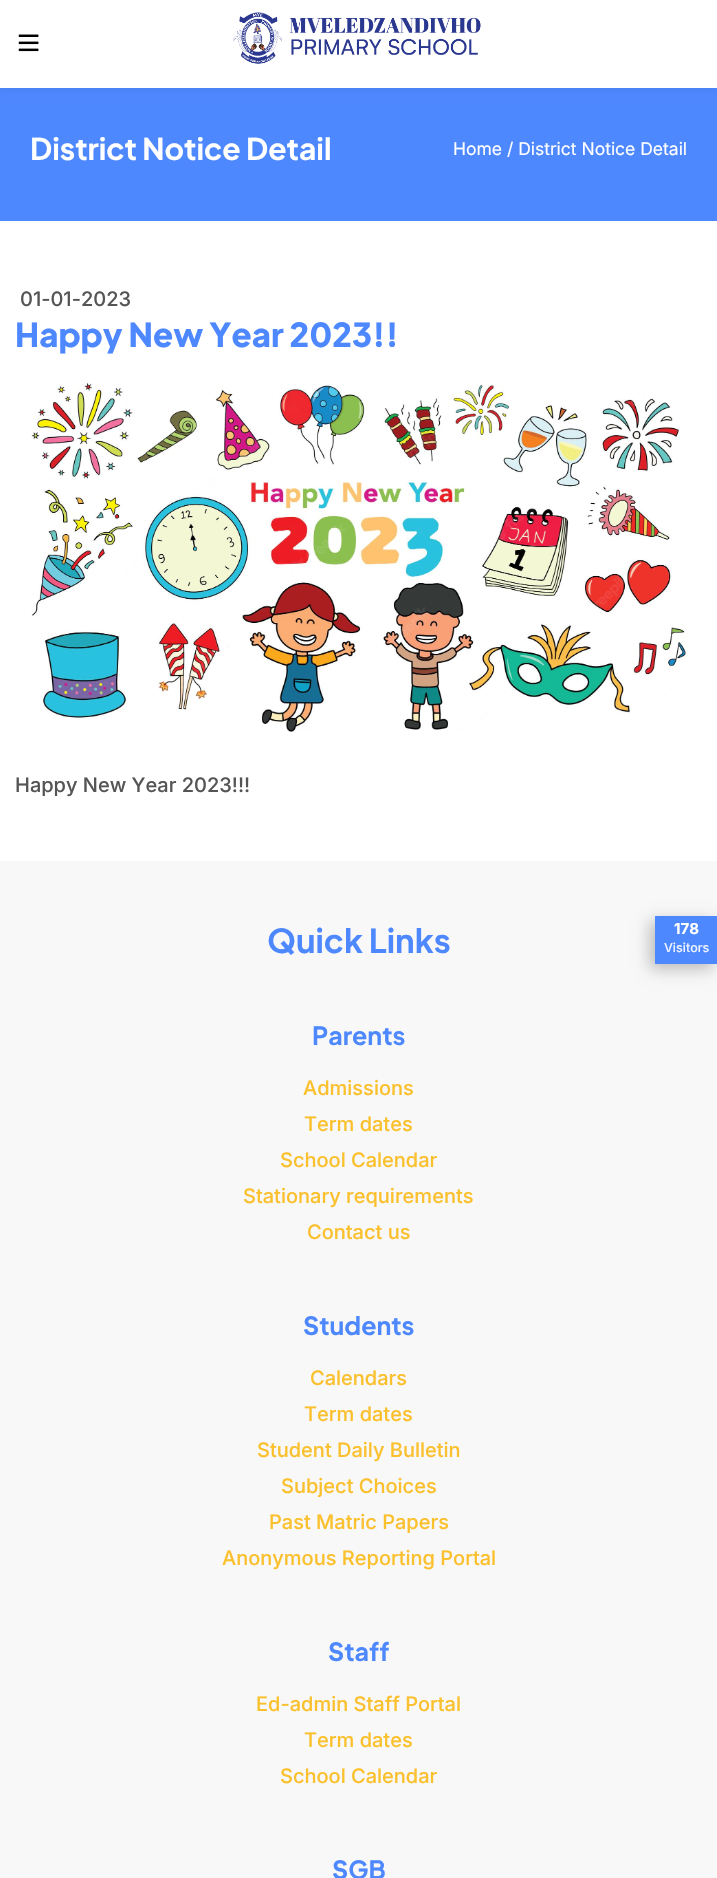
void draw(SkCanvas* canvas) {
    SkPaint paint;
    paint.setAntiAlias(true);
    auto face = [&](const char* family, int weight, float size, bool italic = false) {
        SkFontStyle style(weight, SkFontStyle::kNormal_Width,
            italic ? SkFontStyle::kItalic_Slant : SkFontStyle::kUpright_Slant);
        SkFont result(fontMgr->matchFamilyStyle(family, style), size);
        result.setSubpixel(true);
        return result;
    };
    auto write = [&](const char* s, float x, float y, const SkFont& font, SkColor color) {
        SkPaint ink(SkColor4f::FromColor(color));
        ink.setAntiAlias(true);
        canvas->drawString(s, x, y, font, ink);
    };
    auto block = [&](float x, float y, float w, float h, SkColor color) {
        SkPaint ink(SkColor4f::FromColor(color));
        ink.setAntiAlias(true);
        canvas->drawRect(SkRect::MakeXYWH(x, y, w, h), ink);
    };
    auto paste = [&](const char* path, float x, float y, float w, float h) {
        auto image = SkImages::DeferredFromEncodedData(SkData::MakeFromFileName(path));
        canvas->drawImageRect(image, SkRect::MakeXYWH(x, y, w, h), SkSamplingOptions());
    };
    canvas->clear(SK_ColorWHITE);
    block(0, 88, 717, 133, SkColorSetRGB(78, 136, 255));
    paint.setColor(SkColorSetARGB(13, 0, 0, 0));
    paint.setMaskFilter(SkMaskFilter::MakeBlur(kNormal_SkBlurStyle, 3));
    canvas->drawRect(SkRect::MakeXYWH(0, 3, 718, 87), paint);
    paint.setMaskFilter(nullptr);
    block(0, 0, 717, 88, SK_ColorWHITE);
    paste("pic1.png", 18, 34, 21, 18);
    paste("pic2.png", 233, 12, 248, 52);
    auto kFont1 = face("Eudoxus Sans", 700, 30);
    write("District Notice Detail", 30, 160, kFont1, SK_ColorWHITE);
    auto kFont2 = face("Inter", 400, 17.5f);
    write("Home / District Notice Detail", 453, 155, kFont2, SK_ColorWHITE);
    auto kFont3 = face("Inter", 500, 20);
    write("01-01-2023", 20, 306, kFont3, SkColorSetRGB(85, 85, 85));
    auto kFont4 = face("Eudoxus Sans", 800, 33);
    write("Happy New Year 2023!!", 15, 347, kFont4, SkColorSetRGB(78, 136, 255));
    paste("pic3.png", 31, 383, 655, 349);
    write("Happy New Year 2023!!!", 15, 792, kFont3, SkColorSetRGB(85, 85, 85));
    block(0, 861, 717, 1017, SkColorSetRGB(248, 248, 248));
    auto kFont5 = face("Eudoxus Sans", 700, 33);
    write("Quick Links", 267, 953, kFont5, SkColorSetRGB(78, 136, 255));
    auto kFont6 = face("Eudoxus Sans", 700, 25);
    write("Parents", 312, 1045, kFont6, SkColorSetRGB(78, 136, 255));
    write("Admissions", 303, 1095, kFont3, SkColorSetRGB(251, 192, 45));
    write("Term dates", 304, 1131, kFont3, SkColorSetRGB(251, 192, 45));
    write("School Calendar", 280, 1167, kFont3, SkColorSetRGB(251, 192, 45));
    write("Stationary requirements", 243, 1203, kFont3, SkColorSetRGB(251, 192, 45));
    write("Contact us", 307, 1239, kFont3, SkColorSetRGB(251, 192, 45));
    write("Students", 303, 1335, kFont6, SkColorSetRGB(78, 136, 255));
    write("Calendars", 310, 1385, kFont3, SkColorSetRGB(251, 192, 45));
    write("Term dates", 304, 1421, kFont3, SkColorSetRGB(251, 192, 45));
    write("Student Daily Bulletin", 257, 1457, kFont3, SkColorSetRGB(251, 192, 45));
    write("Subject Choices", 281, 1493, kFont3, SkColorSetRGB(251, 192, 45));
    write("Past Matric Papers", 269, 1529, kFont3, SkColorSetRGB(251, 192, 45));
    write("Anonymous Reporting Portal", 222, 1565, kFont3, SkColorSetRGB(251, 192, 45));
    write("Staff", 328, 1661, kFont6, SkColorSetRGB(78, 136, 255));
    write("Ed-admin Staff Portal", 256, 1711, kFont3, SkColorSetRGB(251, 192, 45));
    write("Term dates", 304, 1747, kFont3, SkColorSetRGB(251, 192, 45));
    write("School Calendar", 280, 1783, kFont3, SkColorSetRGB(251, 192, 45));
    write("SGB", 332, 1879, kFont6, SkColorSetRGB(78, 136, 255));
    paint.setColor(SkColorSetARGB(64, 0, 0, 0));
    paint.setMaskFilter(SkMaskFilter::MakeBlur(kNormal_SkBlurStyle, 7.5f));
    canvas->drawRect(SkRect::MakeXYWH(650, 921, 63, 48), paint);
    paint.setMaskFilter(nullptr);
    block(655, 916, 62, 48, SkColorSetRGB(78, 136, 255));
    auto kFont7 = face("Inter", 700, 15);
    write("178", 674, 934, kFont7, SK_ColorWHITE);
    auto kFont8 = face("Inter", 500, 12.5f);
    write("Visitors", 664, 952, kFont8, SkColorSetRGB(237, 243, 255));
}
